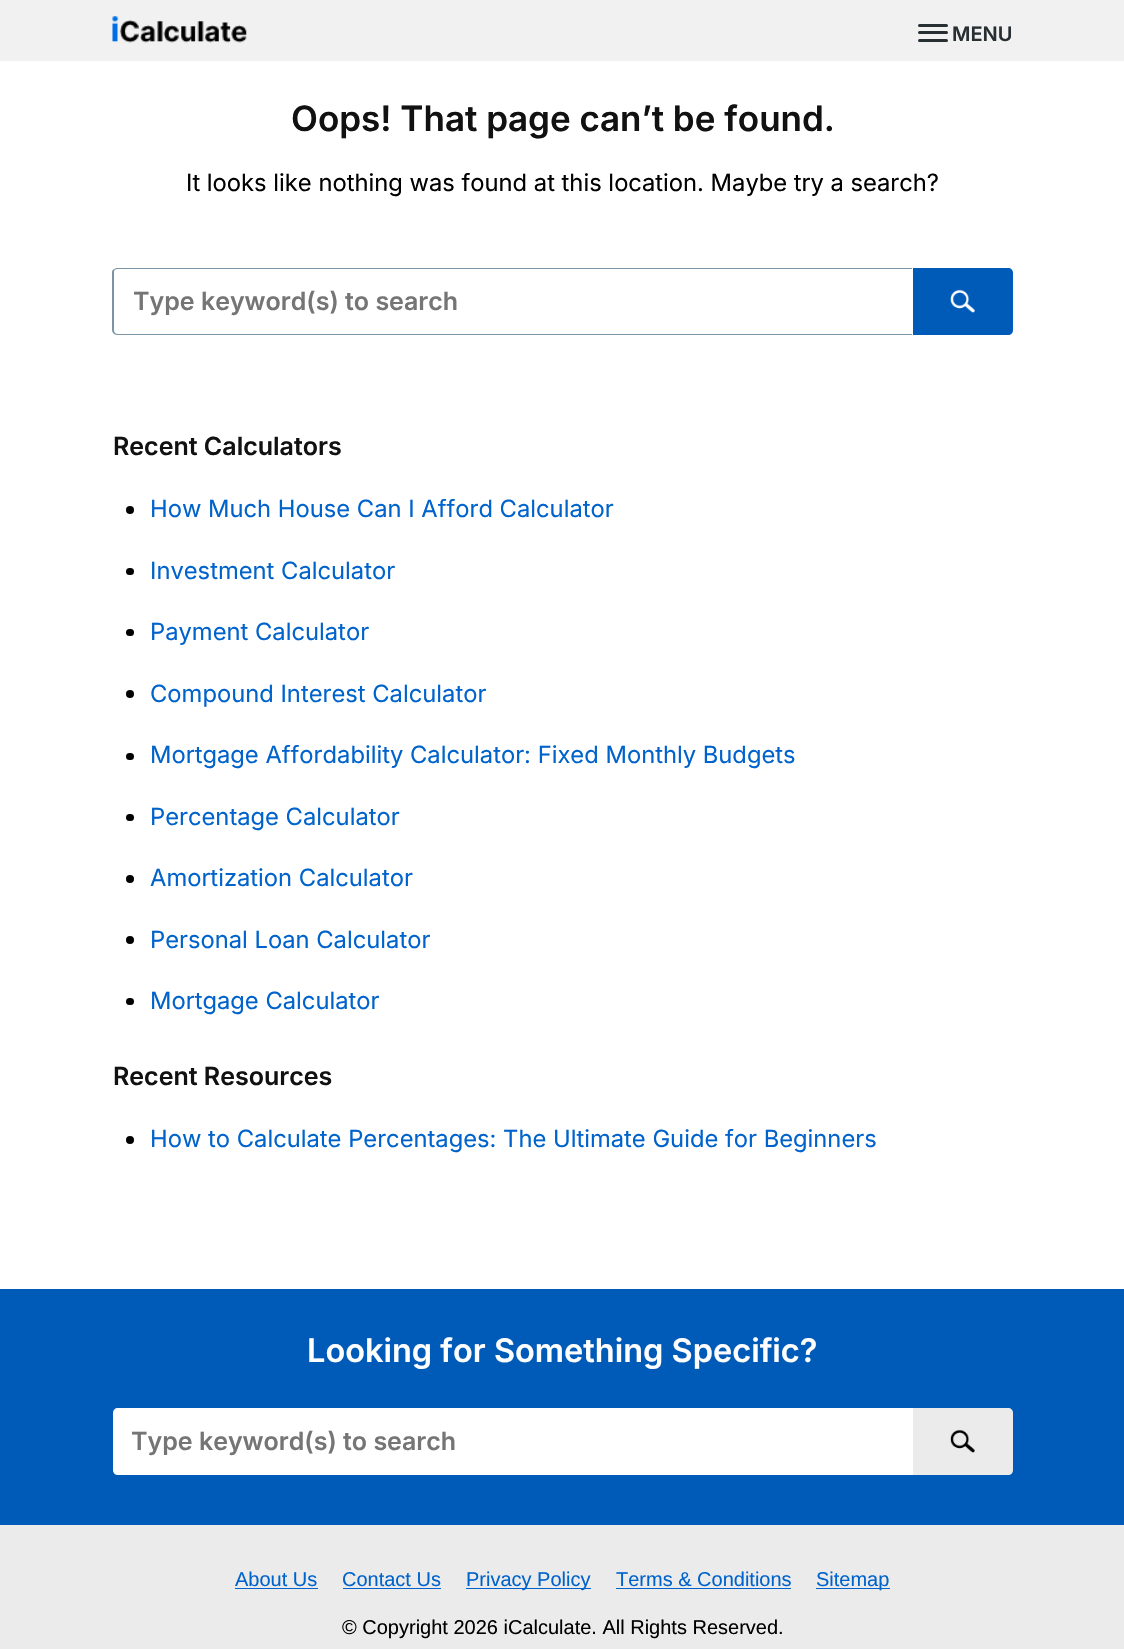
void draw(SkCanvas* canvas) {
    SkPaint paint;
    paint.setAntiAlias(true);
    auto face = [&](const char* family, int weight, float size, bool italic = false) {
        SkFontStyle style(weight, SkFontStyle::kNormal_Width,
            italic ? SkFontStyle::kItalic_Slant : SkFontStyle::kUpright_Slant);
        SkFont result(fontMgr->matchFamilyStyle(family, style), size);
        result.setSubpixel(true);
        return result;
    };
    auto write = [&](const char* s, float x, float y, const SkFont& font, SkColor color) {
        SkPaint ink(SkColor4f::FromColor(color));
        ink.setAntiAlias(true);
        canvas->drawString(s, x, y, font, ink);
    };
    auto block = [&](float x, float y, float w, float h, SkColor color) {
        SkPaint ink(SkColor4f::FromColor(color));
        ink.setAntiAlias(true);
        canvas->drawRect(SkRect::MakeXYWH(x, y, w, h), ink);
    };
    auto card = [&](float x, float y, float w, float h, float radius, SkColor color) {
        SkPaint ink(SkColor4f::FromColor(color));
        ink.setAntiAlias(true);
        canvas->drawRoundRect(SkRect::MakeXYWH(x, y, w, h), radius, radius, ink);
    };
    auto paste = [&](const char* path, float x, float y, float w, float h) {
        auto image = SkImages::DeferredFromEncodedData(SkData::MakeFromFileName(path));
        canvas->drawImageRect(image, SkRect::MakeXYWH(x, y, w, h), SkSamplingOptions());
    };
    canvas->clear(SK_ColorWHITE);
    block(0, 0, 1124, 61, SkColorSetRGB(241, 241, 241));
    paste("pic1.png", 112, 16, 135, 27);
    card(918, 31, 30, 3, 1.5f, SkColorSetRGB(40, 47, 51));
    card(918, 24, 30, 3, 1.5f, SkColorSetRGB(40, 47, 51));
    card(918, 39, 30, 3, 1.5f, SkColorSetRGB(40, 47, 51));
    auto kFont1 = face("Inter", 600, 20);
    write("MENU", 952, 41, kFont1, SkColorSetRGB(40, 47, 51));
    auto kFont2 = face("Inter", 600, 35);
    write("Oops! That page can’t be found.", 291, 131, kFont2, SkColorSetRGB(17, 17, 17));
    auto kFont3 = face("Inter", 400, 23.75f);
    write("It looks like nothing was found at this location. Maybe try a search?", 186, 191, kFont3, SK_ColorBLACK);
    paint.setColor(SkColorSetRGB(124, 149, 166));
    canvas->drawPath(SkPathBuilder(SkPathFillType::kEvenOdd).moveTo(118, 268).lineTo(912, 268).lineTo(912, 335).lineTo(118, 335).cubicTo(115, 335, 112, 333, 112, 330).lineTo(112, 272).cubicTo(112, 270, 115, 268, 118, 268).close().moveTo(118, 269).lineTo(912, 269).lineTo(912, 334).lineTo(118, 334).cubicTo(115, 334, 114, 332, 114, 330).lineTo(114, 272).cubicTo(114, 270, 115, 269, 118, 269).close().detach(), paint);
    auto kFont4 = face("Inter", 600, 25);
    write("Type keyword(s) to search", 133, 310, kFont4, SkColorSetRGB(117, 117, 117));
    paint.setColor(SkColorSetRGB(0, 90, 184));
    canvas->drawPath(SkPathBuilder().moveTo(913, 268).lineTo(1008, 268).cubicTo(1011, 268, 1013, 270, 1013, 273).lineTo(1013, 330).cubicTo(1013, 333, 1011, 335, 1008, 335).lineTo(913, 335).close().detach(), paint);
    paste("pic2.png", 950, 289, 25, 24);
    write("Recent Calculators", 113, 455, kFont4, SkColorSetRGB(17, 17, 17));
    paint.setColor(SK_ColorBLACK);
    canvas->drawCircle(130, 510, 4, paint);
    write("How Much House Can I Afford Calculator", 150, 517, kFont3, SkColorSetRGB(0, 99, 204));
    card(126, 568, 8, 7, 3.5f, SK_ColorBLACK);
    write("Investment Calculator", 150, 579, kFont3, SkColorSetRGB(0, 99, 204));
    card(126, 629, 8, 7, 3.5f, SK_ColorBLACK);
    write("Payment Calculator", 150, 640, kFont3, SkColorSetRGB(0, 99, 204));
    canvas->drawCircle(130, 694, 4, paint);
    write("Compound Interest Calculator", 150, 702, kFont3, SkColorSetRGB(0, 99, 204));
    card(126, 753, 8, 7, 3.5f, SK_ColorBLACK);
    write("Mortgage Affordability Calculator: Fixed Monthly Budgets", 150, 763, kFont3, SkColorSetRGB(0, 99, 204));
    card(126, 814, 8, 7, 3.5f, SK_ColorBLACK);
    write("Percentage Calculator", 150, 825, kFont3, SkColorSetRGB(0, 99, 204));
    canvas->drawCircle(130, 879, 4, paint);
    write("Amortization Calculator", 150, 886, kFont3, SkColorSetRGB(0, 99, 204));
    canvas->drawCircle(130, 940, 4, paint);
    write("Personal Loan Calculator", 150, 948, kFont3, SkColorSetRGB(0, 99, 204));
    card(126, 998, 8, 7, 3.5f, SK_ColorBLACK);
    write("Mortgage Calculator", 150, 1009, kFont3, SkColorSetRGB(0, 99, 204));
    write("Recent Resources", 113, 1085, kFont4, SkColorSetRGB(17, 17, 17));
    canvas->drawCircle(130, 1140, 4, paint);
    write("How to Calculate Percentages: The Ultimate Guide for Beginners", 150, 1147, kFont3, SkColorSetRGB(0, 99, 204));
    block(0, 1289, 1124, 236, SkColorSetRGB(0, 90, 184));
    auto kFont5 = face("Inter", 600, 32.5f);
    write("Looking for Something Specific?", 307, 1362, kFont5, SK_ColorWHITE);
    paint.setColor(SK_ColorWHITE);
    canvas->drawPath(SkPathBuilder().moveTo(118, 1408).lineTo(913, 1408).lineTo(913, 1475).lineTo(118, 1475).cubicTo(115, 1475, 113, 1473, 113, 1470).lineTo(113, 1413).cubicTo(113, 1410, 115, 1408, 118, 1408).close().detach(), paint);
    write("Type keyword(s) to search", 131, 1450, kFont4, SkColorSetRGB(117, 117, 117));
    paint.setColor(SkColorSetRGB(235, 235, 235));
    canvas->drawPath(SkPathBuilder().moveTo(913, 1408).lineTo(1008, 1408).cubicTo(1011, 1408, 1013, 1410, 1013, 1413).lineTo(1013, 1470).cubicTo(1013, 1473, 1011, 1475, 1008, 1475).lineTo(913, 1475).close().detach(), paint);
    paste("pic3.png", 950, 1429, 25, 24);
    block(0, 1525, 1124, 124, SkColorSetRGB(235, 235, 235));
    auto kFont6 = face("Liberation Sans", 400, 20);
    write("About Us", 235, 1586, kFont6, SkColorSetRGB(0, 99, 204));
    block(235, 1588, 83, 1, SkColorSetRGB(0, 99, 204));
    write("Contact Us", 342, 1586, kFont6, SkColorSetRGB(0, 99, 204));
    block(343, 1588, 98, 1, SkColorSetRGB(0, 99, 204));
    block(466, 1588, 125, 1, SkColorSetRGB(0, 99, 204));
    write("Privacy Policy", 466, 1586, kFont6, SkColorSetRGB(0, 99, 204));
    write("Terms & Conditions", 616, 1586, kFont6, SkColorSetRGB(0, 99, 204));
    block(616, 1588, 175, 1, SkColorSetRGB(0, 99, 204));
    block(816, 1588, 74, 1, SkColorSetRGB(0, 99, 204));
    write("Sitemap", 816, 1586, kFont6, SkColorSetRGB(0, 99, 204));
    write("© Copyright 2026 iCalculate. All Rights Reserved.", 342, 1634, kFont6, SK_ColorBLACK);
}
